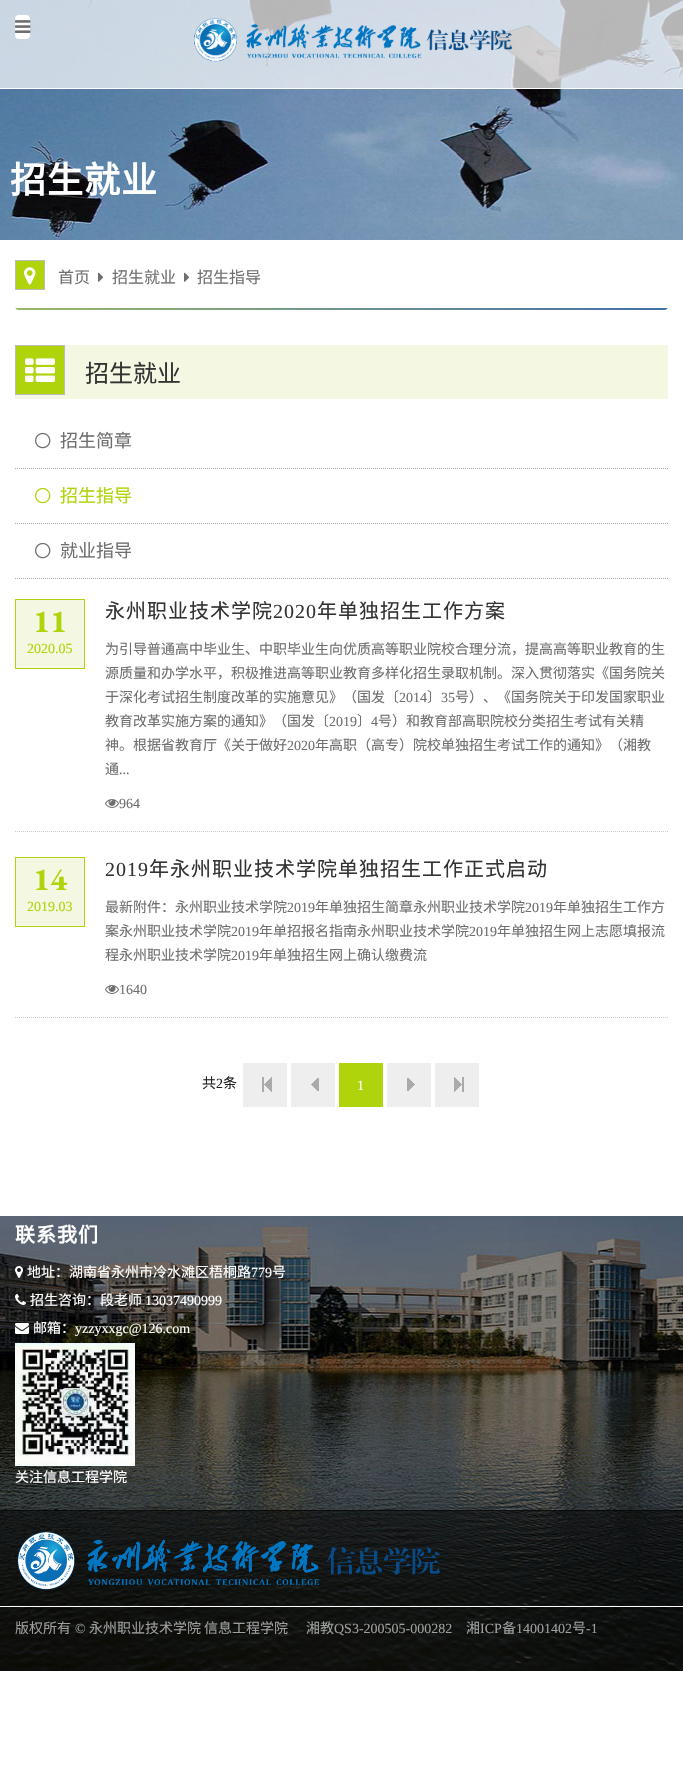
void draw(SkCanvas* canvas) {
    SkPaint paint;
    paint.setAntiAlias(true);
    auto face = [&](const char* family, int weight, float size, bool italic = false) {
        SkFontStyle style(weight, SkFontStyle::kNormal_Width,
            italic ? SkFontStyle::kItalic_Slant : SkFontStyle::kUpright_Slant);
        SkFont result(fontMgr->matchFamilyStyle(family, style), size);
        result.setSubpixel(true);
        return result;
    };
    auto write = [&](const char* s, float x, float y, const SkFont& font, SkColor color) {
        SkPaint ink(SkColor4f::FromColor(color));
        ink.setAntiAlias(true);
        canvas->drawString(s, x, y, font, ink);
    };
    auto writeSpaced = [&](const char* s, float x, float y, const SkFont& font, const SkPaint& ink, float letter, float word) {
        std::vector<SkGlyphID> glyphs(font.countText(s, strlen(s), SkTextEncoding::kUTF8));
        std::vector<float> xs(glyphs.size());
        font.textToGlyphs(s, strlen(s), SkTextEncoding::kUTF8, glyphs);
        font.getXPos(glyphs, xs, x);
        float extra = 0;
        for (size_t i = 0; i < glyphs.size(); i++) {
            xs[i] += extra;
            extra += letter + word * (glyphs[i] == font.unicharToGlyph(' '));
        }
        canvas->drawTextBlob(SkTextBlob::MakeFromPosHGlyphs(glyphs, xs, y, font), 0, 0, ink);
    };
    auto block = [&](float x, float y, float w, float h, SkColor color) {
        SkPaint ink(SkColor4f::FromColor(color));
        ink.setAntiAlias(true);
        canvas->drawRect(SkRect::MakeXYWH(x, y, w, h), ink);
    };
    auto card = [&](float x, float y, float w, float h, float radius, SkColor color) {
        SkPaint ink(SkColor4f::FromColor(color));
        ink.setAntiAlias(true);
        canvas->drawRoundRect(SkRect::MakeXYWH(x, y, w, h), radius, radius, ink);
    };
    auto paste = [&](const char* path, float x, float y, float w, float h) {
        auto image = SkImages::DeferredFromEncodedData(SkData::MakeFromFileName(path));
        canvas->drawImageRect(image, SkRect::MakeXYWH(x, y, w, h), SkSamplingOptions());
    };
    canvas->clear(SK_ColorWHITE);
    paste("pic3.png", 0, 0, 683, 240);
    block(0, 0, 683, 88, SkColorSetARGB(179, 255, 255, 255));
    block(0, 88, 683, 1, SK_ColorWHITE);
    card(15, 15, 15, 24, 4, SK_ColorWHITE);
    paste("pic1.png", 15, 20, 16, 13);
    paste("pic2.png", 194, 18, 318, 44);
    auto kFont1 = face("Noto Sans CJK SC", 700, 36);
    paint.setColor(SK_ColorWHITE);
    writeSpaced("招生就业", 10, 193, kFont1, paint, 1, 0);
    paste("pic4.png", 15, 308, 653, 2);
    paint.setColor(SkColorSetRGB(175, 212, 12));
    canvas->drawRect(SkRect::MakeXYWH(15.5f, 260.5f, 29, 29), paint);
    paint.setStyle(SkPaint::kStroke_Style);
    paint.setStrokeWidth(1);
    paint.setColor(SkColorSetRGB(187, 187, 187));
    canvas->drawRect(SkRect::MakeXYWH(15.5f, 260.5f, 29, 29), paint);
    paste("pic5.png", 24, 267, 12, 18);
    auto kFont2 = face("Noto Sans CJK SC", 400, 16);
    write("首页", 58, 283, kFont2, SkColorSetRGB(111, 111, 111));
    paste("pic6.png", 98, 272, 6, 10);
    write("招生就业", 112, 283, kFont2, SkColorSetRGB(111, 111, 111));
    paste("pic6.png", 184, 272, 6, 10);
    write("招生指导", 197, 283, kFont2, SkColorSetRGB(111, 111, 111));
    block(15, 345, 653, 54, SkColorSetRGB(244, 248, 226));
    paint.setStyle(SkPaint::kFill_Style);
    paint.setColor(SkColorSetRGB(175, 212, 12));
    canvas->drawRect(SkRect::MakeXYWH(15.5f, 345.5f, 49, 49), paint);
    paint.setStyle(SkPaint::kStroke_Style);
    paint.setColor(SkColorSetRGB(187, 187, 187));
    canvas->drawRect(SkRect::MakeXYWH(15.5f, 345.5f, 49, 49), paint);
    paste("pic7.png", 25, 358, 30, 24);
    auto kFont3 = face("Noto Sans CJK SC", 400, 24);
    write("招生就业", 85, 382, kFont3, SkColorSetRGB(51, 51, 51));
    paint.setColor(SkColorSetRGB(170, 170, 170));
    paint.setPathEffect(SkDashPathEffect::Make({{1, 1}}, 0));
    canvas->drawPath(SkPathBuilder().moveTo(15, 468.5f).lineTo(668, 468.5f).detach(), paint);
    paint.setPathEffect(nullptr);
    paste("pic8.png", 35, 432, 16, 17);
    auto kFont4 = face("Noto Sans CJK SC", 400, 18);
    write("招生简章", 60, 447, kFont4, SkColorSetRGB(111, 111, 111));
    paint.setPathEffect(SkDashPathEffect::Make({{1, 1}}, 0));
    canvas->drawPath(SkPathBuilder().moveTo(15, 523.5f).lineTo(668, 523.5f).detach(), paint);
    paint.setPathEffect(nullptr);
    paste("pic9.png", 35, 487, 16, 17);
    write("招生指导", 60, 502, kFont4, SkColorSetRGB(175, 212, 12));
    paint.setPathEffect(SkDashPathEffect::Make({{1, 1}}, 0));
    canvas->drawPath(SkPathBuilder().moveTo(15, 578.5f).lineTo(668, 578.5f).detach(), paint);
    paint.setPathEffect(nullptr);
    paste("pic8.png", 35, 542, 16, 17);
    write("就业指导", 60, 557, kFont4, SkColorSetRGB(111, 111, 111));
    paint.setColor(SkColorSetRGB(204, 204, 204));
    paint.setPathEffect(SkDashPathEffect::Make({{1, 1}}, 0));
    canvas->drawPath(SkPathBuilder().moveTo(15, 831.5f).lineTo(668, 831.5f).detach(), paint);
    paint.setPathEffect(nullptr);
    paint.setStyle(SkPaint::kFill_Style);
    paint.setColor(SkColorSetRGB(244, 248, 226));
    canvas->drawRect(SkRect::MakeXYWH(15.5f, 599.5f, 69, 69), paint);
    paint.setStyle(SkPaint::kStroke_Style);
    paint.setColor(SkColorSetRGB(175, 212, 12));
    canvas->drawRect(SkRect::MakeXYWH(15.5f, 599.5f, 69, 69), paint);
    auto kFont5 = face("EB Garamond", 700, 32);
    write("11", 33, 632, kFont5, SkColorSetRGB(175, 212, 12));
    auto kFont6 = face("Liberation Serif", 400, 14);
    write("2020.05", 27, 653, kFont6, SkColorSetRGB(175, 212, 12));
    auto kFont7 = face("Noto Sans CJK SC", 400, 20);
    paint.setStyle(SkPaint::kFill_Style);
    paint.setColor(SkColorSetRGB(51, 51, 51));
    writeSpaced("永州职业技术学院", 105, 618, kFont7, paint, 1, 0);
    auto kFont8 = face("Liberation Serif", 400, 20);
    writeSpaced("2020", 273, 618, kFont8, paint, 1, 0);
    writeSpaced("年单独招生工作方案", 317, 618, kFont7, paint, 1, 0);
    auto kFont9 = face("Noto Sans CJK SC", 400, 14);
    write("为引导普通高中毕业生、中职毕业生向优质高等职业院校合理分流，提高高等职业教育的生", 105, 654, kFont9, SkColorSetRGB(111, 111, 111));
    write("源质量和办学水平，积极推进高等职业教育多样化招生录取机制。深入贯彻落实《国务院关", 105, 678, kFont9, SkColorSetRGB(111, 111, 111));
    write("于深化考试招生制度改革的实施意见》（国发〔", 105, 702, kFont9, SkColorSetRGB(111, 111, 111));
    write("2014", 399, 702, kFont6, SkColorSetRGB(111, 111, 111));
    write("〕", 427, 702, kFont9, SkColorSetRGB(111, 111, 111));
    write("35", 441, 702, kFont6, SkColorSetRGB(111, 111, 111));
    write("号）、《国务院关于印发国家职业", 455, 702, kFont9, SkColorSetRGB(111, 111, 111));
    write("教育改革实施方案的通知》（国发〔", 105, 726, kFont9, SkColorSetRGB(111, 111, 111));
    write("2019", 329, 726, kFont6, SkColorSetRGB(111, 111, 111));
    write("〕", 357, 726, kFont9, SkColorSetRGB(111, 111, 111));
    write("4", 371, 726, kFont6, SkColorSetRGB(111, 111, 111));
    write("号）和教育部高职院校分类招生考试有关精", 378, 726, kFont9, SkColorSetRGB(111, 111, 111));
    write("神。根据省教育厅《关于做好", 105, 750, kFont9, SkColorSetRGB(111, 111, 111));
    write("2020", 287, 750, kFont6, SkColorSetRGB(111, 111, 111));
    write("年高职（高专）院校单独招生考试工作的通知》（湘教", 315, 750, kFont9, SkColorSetRGB(111, 111, 111));
    write("通", 105, 774, kFont9, SkColorSetRGB(111, 111, 111));
    write("...", 119, 774, kFont6, SkColorSetRGB(111, 111, 111));
    paste("pic10.png", 105, 799, 14, 9);
    write("964", 119, 808, kFont6, SkColorSetRGB(111, 111, 111));
    paint.setStyle(SkPaint::kStroke_Style);
    paint.setColor(SkColorSetRGB(204, 204, 204));
    paint.setPathEffect(SkDashPathEffect::Make({{1, 1}}, 0));
    canvas->drawPath(SkPathBuilder().moveTo(15, 1017.5f).lineTo(668, 1017.5f).detach(), paint);
    paint.setPathEffect(nullptr);
    paint.setStyle(SkPaint::kFill_Style);
    paint.setColor(SkColorSetRGB(244, 248, 226));
    canvas->drawRect(SkRect::MakeXYWH(15.5f, 857.5f, 69, 69), paint);
    paint.setStyle(SkPaint::kStroke_Style);
    paint.setColor(SkColorSetRGB(175, 212, 12));
    canvas->drawRect(SkRect::MakeXYWH(15.5f, 857.5f, 69, 69), paint);
    write("14", 33, 890, kFont5, SkColorSetRGB(175, 212, 12));
    write("2019.03", 27, 911, kFont6, SkColorSetRGB(175, 212, 12));
    paint.setStyle(SkPaint::kFill_Style);
    paint.setColor(SkColorSetRGB(51, 51, 51));
    writeSpaced("2019", 105, 876, kFont8, paint, 1, 0);
    writeSpaced("年永州职业技术学院单独招生工作正式启动", 149, 876, kFont7, paint, 1, 0);
    write("最新附件：永州职业技术学院", 105, 912, kFont9, SkColorSetRGB(111, 111, 111));
    write("2019", 287, 912, kFont6, SkColorSetRGB(111, 111, 111));
    write("年单独招生简章永州职业技术学院", 315, 912, kFont9, SkColorSetRGB(111, 111, 111));
    write("2019", 525, 912, kFont6, SkColorSetRGB(111, 111, 111));
    write("年单独招生工作方", 553, 912, kFont9, SkColorSetRGB(111, 111, 111));
    write("案永州职业技术学院", 105, 936, kFont9, SkColorSetRGB(111, 111, 111));
    write("2019", 231, 936, kFont6, SkColorSetRGB(111, 111, 111));
    write("年单招报名指南永州职业技术学院", 259, 936, kFont9, SkColorSetRGB(111, 111, 111));
    write("2019", 469, 936, kFont6, SkColorSetRGB(111, 111, 111));
    write("年单独招生网上志愿填报流", 497, 936, kFont9, SkColorSetRGB(111, 111, 111));
    write("程永州职业技术学院", 105, 960, kFont9, SkColorSetRGB(111, 111, 111));
    write("2019", 231, 960, kFont6, SkColorSetRGB(111, 111, 111));
    write("年单独招生网上确认缴费流", 259, 960, kFont9, SkColorSetRGB(111, 111, 111));
    paste("pic10.png", 105, 985, 14, 9);
    write("1640", 119, 994, kFont6, SkColorSetRGB(111, 111, 111));
    write("共", 202, 1088, kFont9, SkColorSetRGB(34, 34, 34));
    write("2", 216, 1088, kFont6, SkColorSetRGB(34, 34, 34));
    write("条", 223, 1088, kFont9, SkColorSetRGB(34, 34, 34));
    block(243, 1063, 44, 44, SkColorSetRGB(238, 238, 238));
    paste("pic11.png", 262, 1077, 10, 15);
    block(291, 1063, 44, 44, SkColorSetRGB(238, 238, 238));
    paste("pic12.png", 311, 1078, 8, 13);
    block(339, 1063, 44, 44, SkColorSetRGB(175, 212, 12));
    write("1", 357, 1090, kFont6, SK_ColorWHITE);
    block(387, 1063, 44, 44, SkColorSetRGB(238, 238, 238));
    paste("pic13.png", 407, 1078, 8, 13);
    block(435, 1063, 44, 44, SkColorSetRGB(238, 238, 238));
    paste("pic14.png", 454, 1077, 10, 15);
    paste("pic15.png", 0, 1216, 683, 455);
    auto kFont10 = face("Noto Sans CJK SC", 700, 20);
    paint.setColor(SK_ColorWHITE);
    writeSpaced("联系我们", 15, 1242, kFont10, paint, 1, 0);
    paste("pic16.png", 15, 1266, 8, 12);
    write("地址：湖南省永州市冷水滩区梧桐路", 27, 1277, kFont9, SK_ColorWHITE);
    write("779", 251, 1277, kFont6, SK_ColorWHITE);
    write("号", 272, 1277, kFont9, SK_ColorWHITE);
    paste("pic17.png", 15, 1294, 11, 11);
    write("招生咨询：段老师", 30, 1305, kFont9, SK_ColorWHITE);
    write("13037490999", 145, 1305, kFont6, SK_ColorWHITE);
    paste("pic18.png", 15, 1323, 14, 11);
    write("邮箱：", 33, 1333, kFont9, SK_ColorWHITE);
    write("yzzyxxgc@126.com", 75, 1333, kFont6, SK_ColorWHITE);
    paste("pic19.png", 15, 1343, 120, 123);
    write("关注信息工程学院", 15, 1482, kFont9, SK_ColorWHITE);
    block(0, 1510, 683, 161, SkColorSetARGB(128, 0, 0, 0));
    block(0, 1510, 683, 1, SkColorSetARGB(153, 0, 0, 0));
    block(0, 1606, 683, 1, SK_ColorWHITE);
    paste("pic20.png", 17, 1532, 423, 58);
    write("版权所有", 15, 1633, kFont9, SkColorSetRGB(158, 159, 158));
    write("©", 75, 1633, kFont6, SkColorSetRGB(158, 159, 158));
    write("永州职业技术学院", 89, 1633, kFont9, SkColorSetRGB(158, 159, 158));
    write("信息工程学院", 204, 1633, kFont9, SkColorSetRGB(158, 159, 158));
    write("湘教", 306, 1633, kFont9, SkColorSetRGB(158, 159, 158));
    write("QS3-200505-000282", 334, 1633, kFont6, SkColorSetRGB(158, 159, 158));
    write("湘", 466, 1633, kFont9, SkColorSetRGB(158, 159, 158));
    write("ICP", 480, 1633, kFont6, SkColorSetRGB(158, 159, 158));
    write("备", 502, 1633, kFont9, SkColorSetRGB(158, 159, 158));
    write("14001402", 516, 1633, kFont6, SkColorSetRGB(158, 159, 158));
    write("号", 572, 1633, kFont9, SkColorSetRGB(158, 159, 158));
    write("-1", 586, 1633, kFont6, SkColorSetRGB(158, 159, 158));
}
